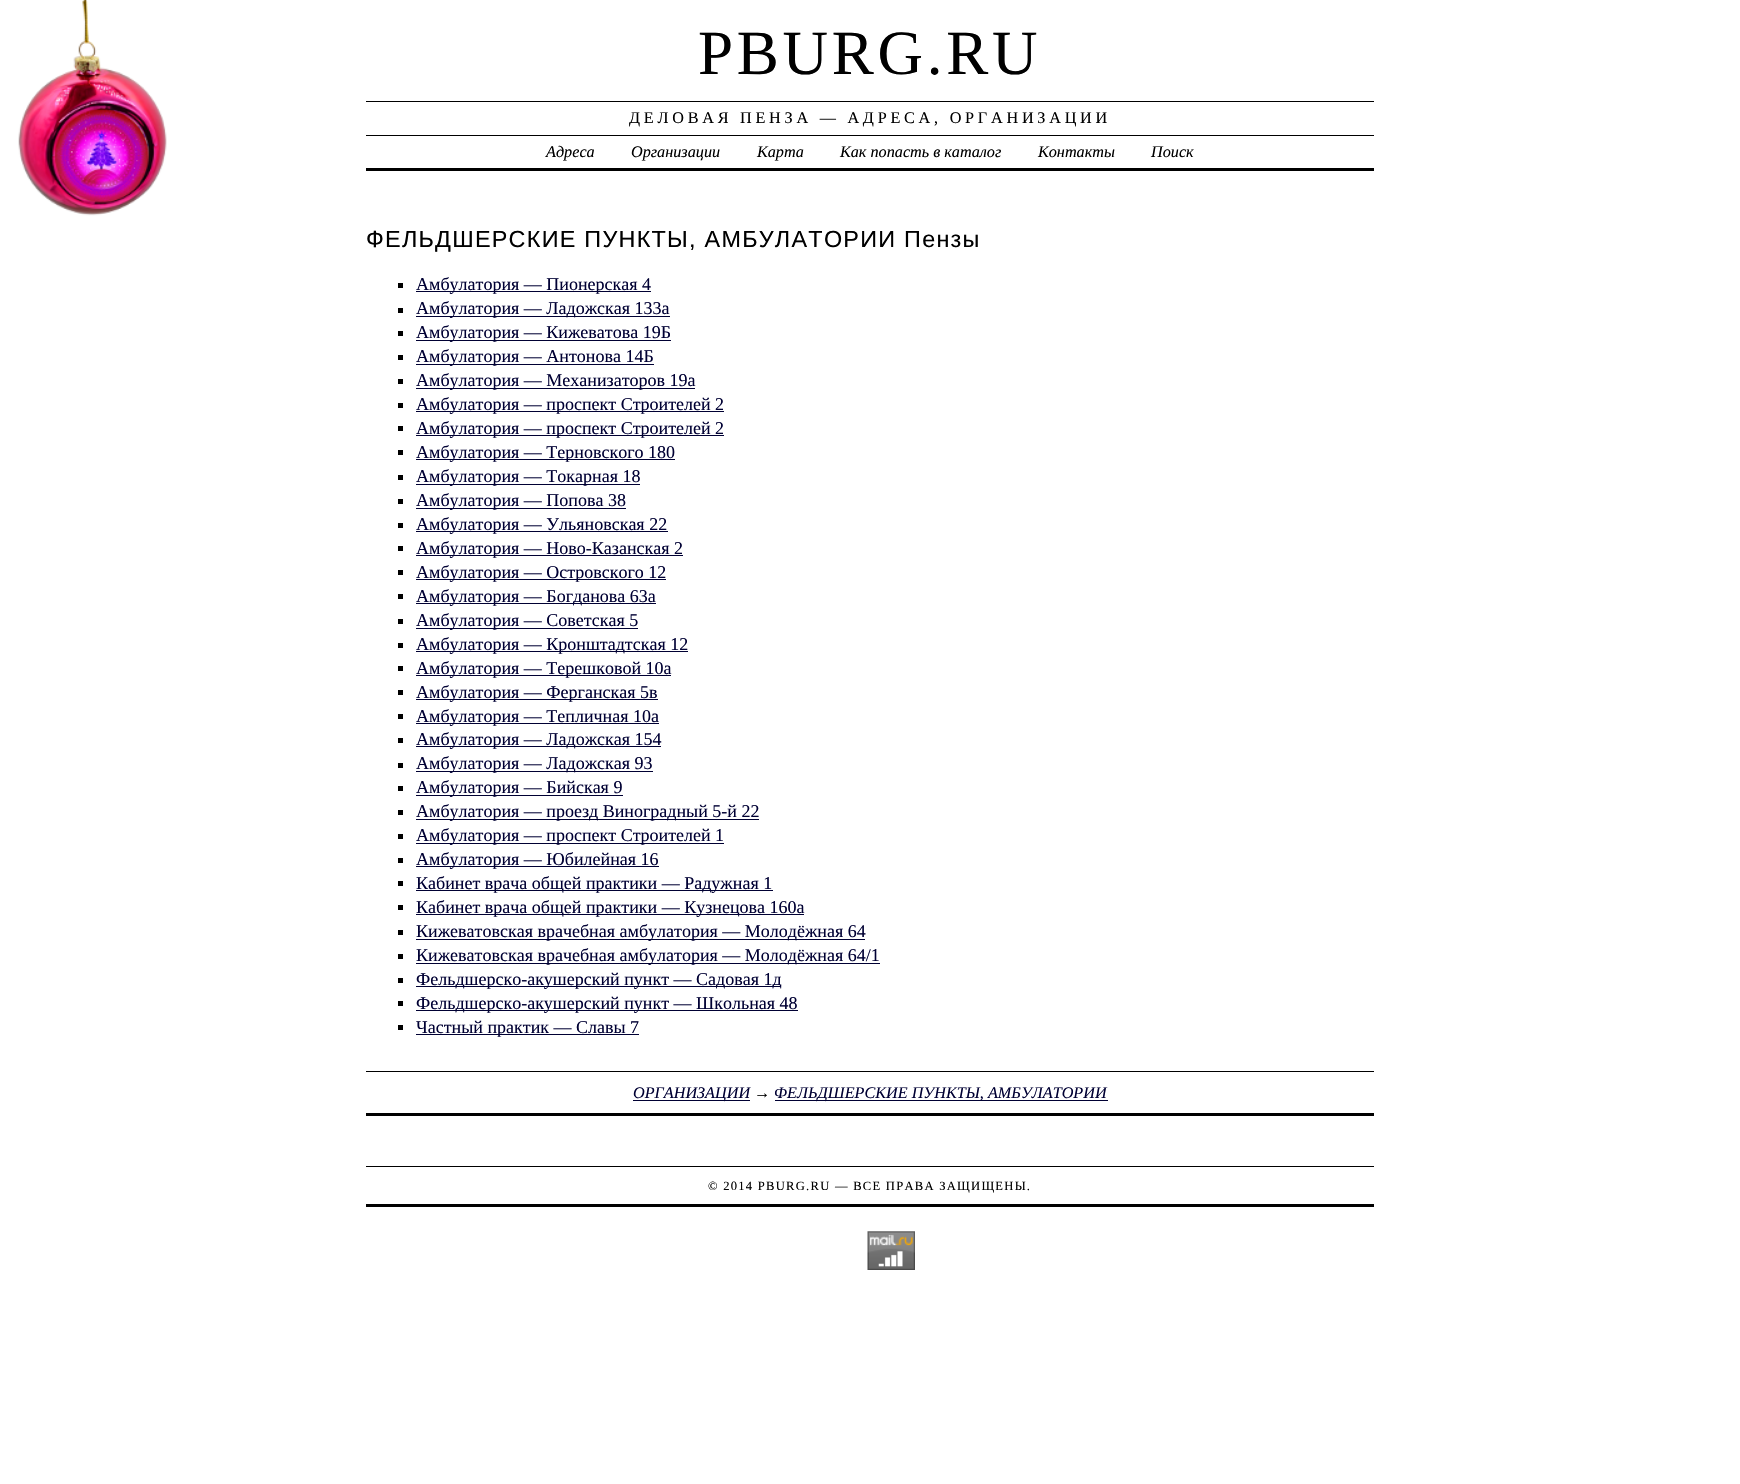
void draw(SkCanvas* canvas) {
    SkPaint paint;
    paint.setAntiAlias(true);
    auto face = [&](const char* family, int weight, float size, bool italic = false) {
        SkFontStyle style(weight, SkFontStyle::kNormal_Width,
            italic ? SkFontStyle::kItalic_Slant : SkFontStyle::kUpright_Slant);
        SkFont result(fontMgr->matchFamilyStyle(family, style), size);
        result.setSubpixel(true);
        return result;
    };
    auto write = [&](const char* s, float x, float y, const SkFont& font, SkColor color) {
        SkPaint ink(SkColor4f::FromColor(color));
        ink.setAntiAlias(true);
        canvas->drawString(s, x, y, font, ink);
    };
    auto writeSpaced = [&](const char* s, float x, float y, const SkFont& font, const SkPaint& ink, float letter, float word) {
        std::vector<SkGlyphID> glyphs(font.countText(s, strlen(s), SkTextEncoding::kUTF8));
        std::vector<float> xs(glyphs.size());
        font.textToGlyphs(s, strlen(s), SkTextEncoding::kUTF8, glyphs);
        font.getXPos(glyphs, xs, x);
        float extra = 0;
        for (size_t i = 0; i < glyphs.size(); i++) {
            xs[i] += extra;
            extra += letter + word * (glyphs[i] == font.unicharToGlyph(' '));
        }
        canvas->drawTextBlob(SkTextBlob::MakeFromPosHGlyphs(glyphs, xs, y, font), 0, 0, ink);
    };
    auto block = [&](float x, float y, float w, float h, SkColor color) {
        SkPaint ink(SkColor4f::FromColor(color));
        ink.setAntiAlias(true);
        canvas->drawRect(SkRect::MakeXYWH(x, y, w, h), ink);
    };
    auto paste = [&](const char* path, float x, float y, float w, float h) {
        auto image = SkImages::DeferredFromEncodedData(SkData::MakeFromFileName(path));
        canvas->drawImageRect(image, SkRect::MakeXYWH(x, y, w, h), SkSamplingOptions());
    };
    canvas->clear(SK_ColorWHITE);
    paste("pic1.png", 18, 0, 149, 216);
    auto kFont1 = face("Liberation Serif", 400, 63);
    paint.setColor(SK_ColorBLACK);
    writeSpaced("PBURG.RU", 698, 74, kFont1, paint, 3.75f, 0);
    block(366, 101, 1008, 1, SK_ColorBLACK);
    auto kFont2 = face("Liberation Serif", 400, 16.2f);
    writeSpaced("ДЕЛОВАЯ ПЕНЗА — АДРЕСА, ОРГАНИЗАЦИИ", 629, 123, kFont2, paint, 3.75f, 0);
    block(366, 135, 1008, 1, SK_ColorBLACK);
    block(366, 168, 1008, 3, SK_ColorBLACK);
    auto kFont3 = face("Liberation Serif", 400, 16.2f, true);
    write("Адреса", 546, 157, kFont3, SK_ColorBLACK);
    write("Организации", 631, 157, kFont3, SK_ColorBLACK);
    write("Карта", 757, 157, kFont3, SK_ColorBLACK);
    write("Как попасть в каталог", 840, 157, kFont3, SK_ColorBLACK);
    write("Контакты", 1038, 157, kFont3, SK_ColorBLACK);
    write("Поиск", 1151, 157, kFont3, SK_ColorBLACK);
    auto kFont4 = face("Liberation Sans", 400, 23.4f);
    writeSpaced("ФЕЛЬДШЕРСКИЕ ПУНКТЫ, АМБУЛАТОРИИ Пензы", 366, 247, kFont4, paint, 1.25f, 0);
    block(398, 283, 5, 5, SK_ColorBLACK);
    block(416, 291, 235, 1, SkColorSetRGB(0, 0, 51));
    auto kFont5 = face("Liberation Serif", 400, 18);
    write("Амбулатория — Пионерская 4", 416, 290, kFont5, SkColorSetRGB(0, 0, 51));
    block(398, 308, 5, 5, SK_ColorBLACK);
    block(416, 316, 254, 1, SkColorSetRGB(0, 0, 51));
    write("Амбулатория — Ладожская 133а", 416, 314, kFont5, SkColorSetRGB(0, 0, 51));
    block(398, 331, 5, 5, SK_ColorBLACK);
    block(416, 340, 255, 1, SkColorSetRGB(0, 0, 51));
    write("Амбулатория — Кижеватова 19Б", 416, 338, kFont5, SkColorSetRGB(0, 0, 51));
    block(398, 355, 5, 5, SK_ColorBLACK);
    block(416, 364, 238, 1, SkColorSetRGB(0, 0, 51));
    write("Амбулатория — Антонова 14Б", 416, 362, kFont5, SkColorSetRGB(0, 0, 51));
    block(398, 379, 5, 5, SK_ColorBLACK);
    block(416, 388, 279, 1, SkColorSetRGB(0, 0, 51));
    write("Амбулатория — Механизаторов 19а", 416, 386, kFont5, SkColorSetRGB(0, 0, 51));
    block(398, 403, 5, 5, SK_ColorBLACK);
    block(416, 411, 308, 1, SkColorSetRGB(0, 0, 51));
    write("Амбулатория — проспект Строителей 2", 416, 410, kFont5, SkColorSetRGB(0, 0, 51));
    block(398, 426, 5, 5, SK_ColorBLACK);
    block(416, 435, 308, 1, SkColorSetRGB(0, 0, 51));
    write("Амбулатория — проспект Строителей 2", 416, 434, kFont5, SkColorSetRGB(0, 0, 51));
    block(398, 450, 5, 5, SK_ColorBLACK);
    block(416, 459, 259, 1, SkColorSetRGB(0, 0, 51));
    write("Амбулатория — Терновского 180", 416, 458, kFont5, SkColorSetRGB(0, 0, 51));
    block(398, 475, 5, 5, SK_ColorBLACK);
    block(416, 484, 224, 1, SkColorSetRGB(0, 0, 51));
    write("Амбулатория — Токарная 18", 416, 482, kFont5, SkColorSetRGB(0, 0, 51));
    block(398, 499, 5, 5, SK_ColorBLACK);
    block(416, 508, 210, 1, SkColorSetRGB(0, 0, 51));
    write("Амбулатория — Попова 38", 416, 506, kFont5, SkColorSetRGB(0, 0, 51));
    block(398, 523, 5, 5, SK_ColorBLACK);
    block(416, 531, 252, 1, SkColorSetRGB(0, 0, 51));
    write("Амбулатория — Ульяновская 22", 416, 530, kFont5, SkColorSetRGB(0, 0, 51));
    block(398, 546, 5, 5, SK_ColorBLACK);
    block(416, 555, 267, 1, SkColorSetRGB(0, 0, 51));
    write("Амбулатория — Ново-Казанская 2", 416, 554, kFont5, SkColorSetRGB(0, 0, 51));
    block(398, 570, 5, 5, SK_ColorBLACK);
    block(416, 579, 250, 1, SkColorSetRGB(0, 0, 51));
    write("Амбулатория — Островского 12", 416, 578, kFont5, SkColorSetRGB(0, 0, 51));
    block(398, 594, 5, 5, SK_ColorBLACK);
    block(416, 603, 240, 1, SkColorSetRGB(0, 0, 51));
    write("Амбулатория — Богданова 63а", 416, 602, kFont5, SkColorSetRGB(0, 0, 51));
    block(398, 619, 5, 5, SK_ColorBLACK);
    block(416, 628, 222, 1, SkColorSetRGB(0, 0, 51));
    write("Амбулатория — Советская 5", 416, 626, kFont5, SkColorSetRGB(0, 0, 51));
    block(398, 643, 5, 5, SK_ColorBLACK);
    block(416, 651, 272, 1, SkColorSetRGB(0, 0, 51));
    write("Амбулатория — Кронштадтская 12", 416, 650, kFont5, SkColorSetRGB(0, 0, 51));
    block(398, 666, 5, 5, SK_ColorBLACK);
    block(416, 675, 255, 1, SkColorSetRGB(0, 0, 51));
    write("Амбулатория — Терешковой 10а", 416, 674, kFont5, SkColorSetRGB(0, 0, 51));
    block(398, 690, 5, 5, SK_ColorBLACK);
    block(416, 699, 242, 1, SkColorSetRGB(0, 0, 51));
    write("Амбулатория — Ферганская 5в", 416, 698, kFont5, SkColorSetRGB(0, 0, 51));
    block(398, 714, 5, 5, SK_ColorBLACK);
    block(416, 723, 243, 1, SkColorSetRGB(0, 0, 51));
    write("Амбулатория — Тепличная 10а", 416, 722, kFont5, SkColorSetRGB(0, 0, 51));
    block(398, 738, 5, 5, SK_ColorBLACK);
    block(416, 746, 245, 1, SkColorSetRGB(0, 0, 51));
    write("Амбулатория — Ладожская 154", 416, 745, kFont5, SkColorSetRGB(0, 0, 51));
    block(398, 763, 5, 5, SK_ColorBLACK);
    block(416, 771, 237, 1, SkColorSetRGB(0, 0, 51));
    write("Амбулатория — Ладожская 93", 416, 769, kFont5, SkColorSetRGB(0, 0, 51));
    block(398, 786, 5, 5, SK_ColorBLACK);
    block(416, 795, 207, 1, SkColorSetRGB(0, 0, 51));
    write("Амбулатория — Бийская 9", 416, 793, kFont5, SkColorSetRGB(0, 0, 51));
    block(398, 810, 5, 5, SK_ColorBLACK);
    block(416, 819, 343, 1, SkColorSetRGB(0, 0, 51));
    write("Амбулатория — проезд Виноградный 5-й 22", 416, 817, kFont5, SkColorSetRGB(0, 0, 51));
    block(398, 834, 5, 5, SK_ColorBLACK);
    block(416, 843, 308, 1, SkColorSetRGB(0, 0, 51));
    write("Амбулатория — проспект Строителей 1", 416, 841, kFont5, SkColorSetRGB(0, 0, 51));
    block(398, 858, 5, 5, SK_ColorBLACK);
    block(416, 866, 243, 1, SkColorSetRGB(0, 0, 51));
    write("Амбулатория — Юбилейная 16", 416, 865, kFont5, SkColorSetRGB(0, 0, 51));
    block(398, 881, 5, 5, SK_ColorBLACK);
    block(416, 890, 357, 1, SkColorSetRGB(0, 0, 51));
    write("Кабинет врача общей практики — Радужная 1", 416, 889, kFont5, SkColorSetRGB(0, 0, 51));
    block(398, 905, 5, 5, SK_ColorBLACK);
    block(416, 914, 388, 1, SkColorSetRGB(0, 0, 51));
    write("Кабинет врача общей практики — Кузнецова 160а", 416, 913, kFont5, SkColorSetRGB(0, 0, 51));
    block(398, 930, 5, 5, SK_ColorBLACK);
    block(416, 939, 449, 1, SkColorSetRGB(0, 0, 51));
    write("Кижеватовская врачебная амбулатория — Молодёжная 64", 416, 937, kFont5, SkColorSetRGB(0, 0, 51));
    block(398, 954, 5, 5, SK_ColorBLACK);
    block(416, 963, 464, 1, SkColorSetRGB(0, 0, 51));
    write("Кижеватовская врачебная амбулатория — Молодёжная 64/1", 416, 961, kFont5, SkColorSetRGB(0, 0, 51));
    block(398, 978, 5, 5, SK_ColorBLACK);
    block(416, 986, 365, 1, SkColorSetRGB(0, 0, 51));
    write("Фельдшерско-акушерский пункт — Садовая 1д", 416, 985, kFont5, SkColorSetRGB(0, 0, 51));
    block(398, 1001, 5, 5, SK_ColorBLACK);
    block(416, 1010, 382, 1, SkColorSetRGB(0, 0, 51));
    write("Фельдшерско-акушерский пункт — Школьная 48", 416, 1009, kFont5, SkColorSetRGB(0, 0, 51));
    block(398, 1025, 5, 5, SK_ColorBLACK);
    block(416, 1034, 223, 1, SkColorSetRGB(0, 0, 51));
    write("Частный практик — Славы 7", 416, 1033, kFont5, SkColorSetRGB(0, 0, 51));
    block(366, 1071, 1008, 1, SK_ColorBLACK);
    block(366, 1113, 1008, 3, SK_ColorBLACK);
    block(633, 1100, 117, 1, SkColorSetRGB(0, 0, 51));
    write("ОРГАНИЗАЦИИ", 633, 1098, kFont3, SkColorSetRGB(0, 0, 51));
    write("→", 754, 1098, kFont3, SK_ColorBLACK);
    block(775, 1100, 333, 1, SkColorSetRGB(0, 0, 51));
    write("ФЕЛЬДШЕРСКИЕ ПУНКТЫ, АМБУЛАТОРИИ", 774, 1098, kFont3, SkColorSetRGB(0, 0, 51));
    block(366, 1166, 1008, 1, SK_ColorBLACK);
    block(366, 1204, 1008, 3, SK_ColorBLACK);
    auto kFont6 = face("Liberation Serif", 400, 12.6f);
    writeSpaced("© 2014 PBURG.RU — ВСЕ ПРАВА ЗАЩИЩЕНЫ.", 708, 1190, kFont6, paint, 1.25f, 0);
    paste("pic2.png", 867, 1231, 48, 39);
}
